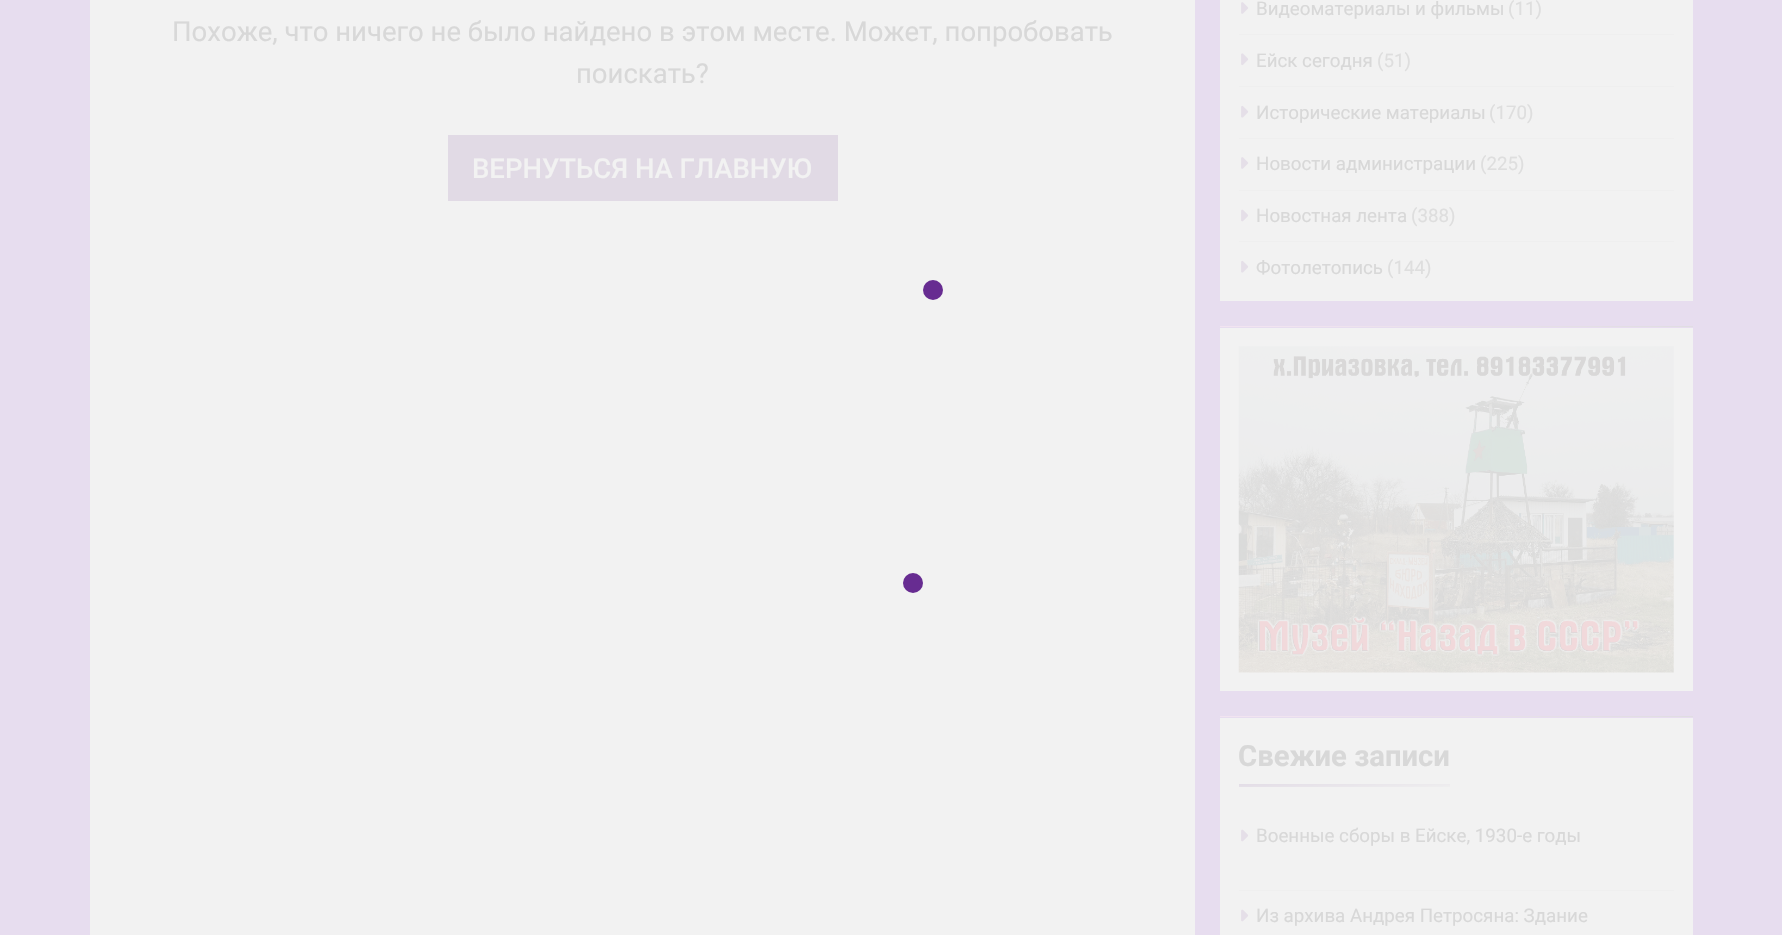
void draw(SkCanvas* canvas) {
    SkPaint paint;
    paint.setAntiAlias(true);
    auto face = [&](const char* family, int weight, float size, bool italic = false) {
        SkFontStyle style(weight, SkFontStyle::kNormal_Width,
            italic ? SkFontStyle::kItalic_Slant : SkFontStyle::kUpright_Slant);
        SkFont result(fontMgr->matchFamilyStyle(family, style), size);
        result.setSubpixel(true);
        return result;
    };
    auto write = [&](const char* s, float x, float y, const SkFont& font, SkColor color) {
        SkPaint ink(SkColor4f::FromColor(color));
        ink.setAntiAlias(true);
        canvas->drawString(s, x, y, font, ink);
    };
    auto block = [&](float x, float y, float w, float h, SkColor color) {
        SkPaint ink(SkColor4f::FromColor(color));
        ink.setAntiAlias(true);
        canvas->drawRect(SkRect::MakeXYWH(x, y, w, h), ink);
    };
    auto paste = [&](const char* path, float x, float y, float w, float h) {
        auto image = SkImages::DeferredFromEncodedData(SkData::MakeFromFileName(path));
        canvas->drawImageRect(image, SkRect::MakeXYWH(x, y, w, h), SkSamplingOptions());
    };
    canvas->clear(SkColorSetRGB(231, 221, 239));
    block(90, 0, 1105, 935, SkColorSetRGB(242, 242, 242));
    auto kFont1 = face("Roboto", 400, 27.5f);
    write("Похоже, что ничего не было найдено в этом месте. Может, попробовать", 172, 41, kFont1, SkColorSetRGB(216, 216, 216));
    write("поискать?", 576, 83, kFont1, SkColorSetRGB(216, 216, 216));
    block(448, 135, 390, 66, SkColorSetRGB(225, 218, 229));
    auto kFont2 = face("Roboto", 500, 27.5f);
    write("ВЕРНУТЬСЯ НА ГЛАВНУЮ", 472, 178, kFont2, SkColorSetRGB(242, 242, 242));
    block(1220, 0, 473, 301, SkColorSetRGB(242, 242, 242));
    block(1239, 34, 435, 1, SkColorSetRGB(239, 239, 239));
    paste("pic1.png", 1241, 2, 8, 12);
    auto kFont3 = face("Roboto", 400, 18.75f);
    write("Видеоматериалы и фильмы", 1256, 15, kFont3, SkColorSetRGB(216, 216, 216));
    write("(11)", 1508, 15, kFont3, SkColorSetRGB(222, 222, 222));
    block(1239, 86, 435, 1, SkColorSetRGB(239, 239, 239));
    paste("pic2.png", 1241, 53, 8, 13);
    write("Ейск сегодня", 1256, 67, kFont3, SkColorSetRGB(216, 216, 216));
    write("(51)", 1377, 67, kFont3, SkColorSetRGB(222, 222, 222));
    block(1239, 138, 435, 1, SkColorSetRGB(239, 239, 239));
    paste("pic3.png", 1241, 105, 8, 13);
    write("Исторические материалы", 1256, 119, kFont3, SkColorSetRGB(216, 216, 216));
    write("(170)", 1489, 119, kFont3, SkColorSetRGB(222, 222, 222));
    block(1239, 190, 435, 1, SkColorSetRGB(239, 239, 239));
    paste("pic1.png", 1241, 157, 8, 12);
    write("Новости администрации", 1256, 170, kFont3, SkColorSetRGB(216, 216, 216));
    write("(225)", 1480, 170, kFont3, SkColorSetRGB(222, 222, 222));
    block(1239, 241, 435, 1, SkColorSetRGB(239, 239, 239));
    paste("pic4.png", 1241, 209, 8, 13);
    write("Новостная лента", 1256, 222, kFont3, SkColorSetRGB(216, 216, 216));
    write("(388)", 1411, 222, kFont3, SkColorSetRGB(222, 222, 222));
    paste("pic3.png", 1241, 260, 8, 13);
    write("Фотолетопись", 1256, 274, kFont3, SkColorSetRGB(216, 216, 216));
    write("(144)", 1387, 274, kFont3, SkColorSetRGB(222, 222, 222));
    block(1220, 328, 473, 363, SkColorSetRGB(242, 242, 242));
    {
        const SkColor colors[] = {SkColorSetRGB(242, 228, 241), SkColorSetRGB(224, 221, 226)};
        const float stops[] = {0.1f, 1};
        const SkPoint ends[] = {{1338, 208}, {1575, 445}};
        paint.setShader(SkGradientShader::MakeLinear(ends, colors, stops, 2, SkTileMode::kClamp));
        paint.setAlpha(255);
    }
    canvas->drawRect(SkRect::MakeXYWH(1220, 326, 473, 1), paint);
    paste("pic5.png", 1238, 346, 436, 327);
    block(1220, 718, 473, 217, SkColorSetRGB(242, 242, 242));
    {
        const SkColor colors[] = {SkColorSetRGB(242, 228, 241), SkColorSetRGB(224, 221, 226)};
        const float stops[] = {0.1f, 1};
        const SkPoint ends[] = {{1338, 598}, {1575, 835}};
        paint.setShader(SkGradientShader::MakeLinear(ends, colors, stops, 2, SkTileMode::kClamp));
        paint.setAlpha(255);
    }
    canvas->drawRect(SkRect::MakeXYWH(1220, 716, 473, 1), paint);
    auto kFont4 = face("Roboto", 700, 29.25f);
    write("Свежие записи", 1238, 766, kFont4, SkColorSetRGB(216, 216, 216));
    {
        const SkColor colors[] = {SkColorSetRGB(225, 218, 229), SkColorSetRGB(240, 240, 240)};
        const float stops[] = {0, 1};
        const SkPoint ends[] = {{1344, 776}, {1345, 794}};
        paint.setShader(SkGradientShader::MakeLinear(ends, colors, stops, 2, SkTileMode::kClamp));
        paint.setAlpha(255);
    }
    canvas->drawRect(SkRect::MakeXYWH(1239, 784, 211, 3), paint);
    block(1239, 890, 435, 1, SkColorSetRGB(239, 239, 239));
    paste("pic4.png", 1241, 829, 8, 13);
    write("Военные сборы в Ейске, 1930-е годы", 1256, 842, kFont3, SkColorSetRGB(216, 216, 216));
    paste("pic4.png", 1241, 909, 8, 13);
    write("Из архива Андрея Петросяна: Здание", 1256, 922, kFont3, SkColorSetRGB(216, 216, 216));
    paint.setShader(nullptr);
    paint.setColor(SkColorSetRGB(103, 44, 145));
    canvas->drawCircle(933, 290, 10, paint);
    canvas->drawCircle(913, 583, 10, paint);
}
